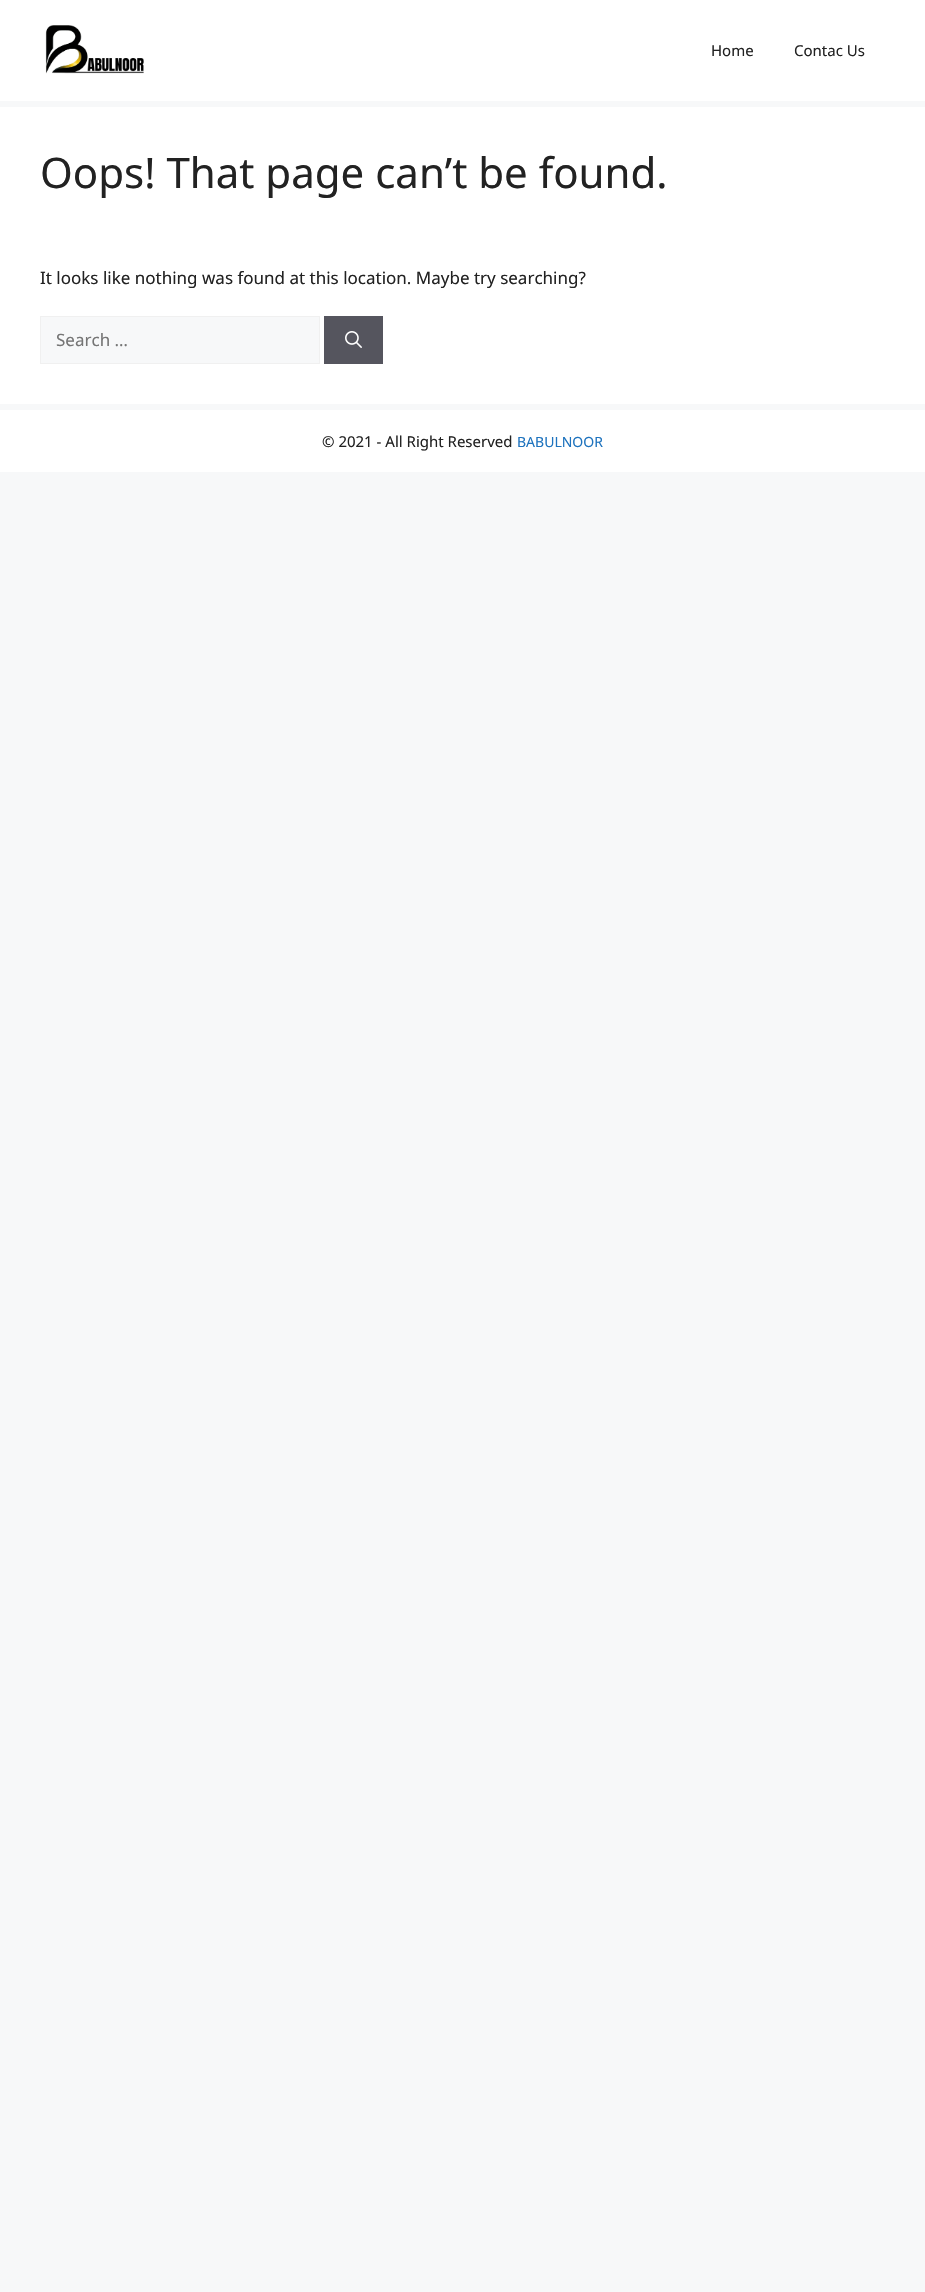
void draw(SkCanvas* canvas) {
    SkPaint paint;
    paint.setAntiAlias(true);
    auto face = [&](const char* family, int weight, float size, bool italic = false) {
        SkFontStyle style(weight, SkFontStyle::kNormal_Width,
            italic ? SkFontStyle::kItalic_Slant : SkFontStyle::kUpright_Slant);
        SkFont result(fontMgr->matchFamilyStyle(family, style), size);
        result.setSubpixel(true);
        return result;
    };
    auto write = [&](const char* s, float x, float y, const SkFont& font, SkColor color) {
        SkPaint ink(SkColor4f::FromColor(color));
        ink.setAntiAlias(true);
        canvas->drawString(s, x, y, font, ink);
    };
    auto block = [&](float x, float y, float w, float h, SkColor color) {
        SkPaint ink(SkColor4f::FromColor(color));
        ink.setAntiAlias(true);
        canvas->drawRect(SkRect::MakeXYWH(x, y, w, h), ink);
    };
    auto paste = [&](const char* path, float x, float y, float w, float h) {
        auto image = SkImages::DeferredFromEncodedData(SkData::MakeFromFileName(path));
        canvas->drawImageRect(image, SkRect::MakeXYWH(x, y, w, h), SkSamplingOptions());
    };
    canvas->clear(SkColorSetRGB(247, 248, 249));
    block(0, 0, 925, 101, SK_ColorWHITE);
    paste("pic1.png", 45, 25, 99, 49);
    auto kFont1 = face("Noto Sans", 400, 15);
    write("Home", 711, 56, kFont1, SkColorSetRGB(34, 34, 34));
    write("Contac Us", 794, 56, kFont1, SkColorSetRGB(34, 34, 34));
    block(0, 107, 925, 297, SK_ColorWHITE);
    auto kFont2 = face("Noto Sans", 400, 42);
    write("Oops! That page can’t be found.", 40, 188, kFont2, SkColorSetRGB(34, 34, 34));
    auto kFont3 = face("Noto Sans", 400, 17);
    write("It looks like nothing was found at this location. Maybe try searching?", 40, 284, kFont3, SkColorSetRGB(34, 34, 34));
    paint.setColor(SkColorSetRGB(247, 248, 249));
    canvas->drawRect(SkRect::MakeXYWH(40.5f, 316.5f, 279, 47), paint);
    paint.setStyle(SkPaint::kStroke_Style);
    paint.setStrokeWidth(1);
    paint.setColor(SkColorSetRGB(240, 240, 240));
    canvas->drawRect(SkRect::MakeXYWH(40.5f, 316.5f, 279, 47), paint);
    write("Search …", 56, 346, kFont3, SkColorSetRGB(117, 117, 117));
    block(324, 316, 59, 48, SkColorSetRGB(85, 85, 94));
    paste("pic2.png", 345, 331, 17, 17);
    block(0, 410, 925, 62, SK_ColorWHITE);
    write("© 2021 - All Right Reserved", 322, 447, kFont1, SkColorSetRGB(34, 34, 34));
    auto kFont4 = face("Noto Sans", 400, 14);
    write("BABULNOOR", 517, 447, kFont4, SkColorSetRGB(30, 115, 190));
}
